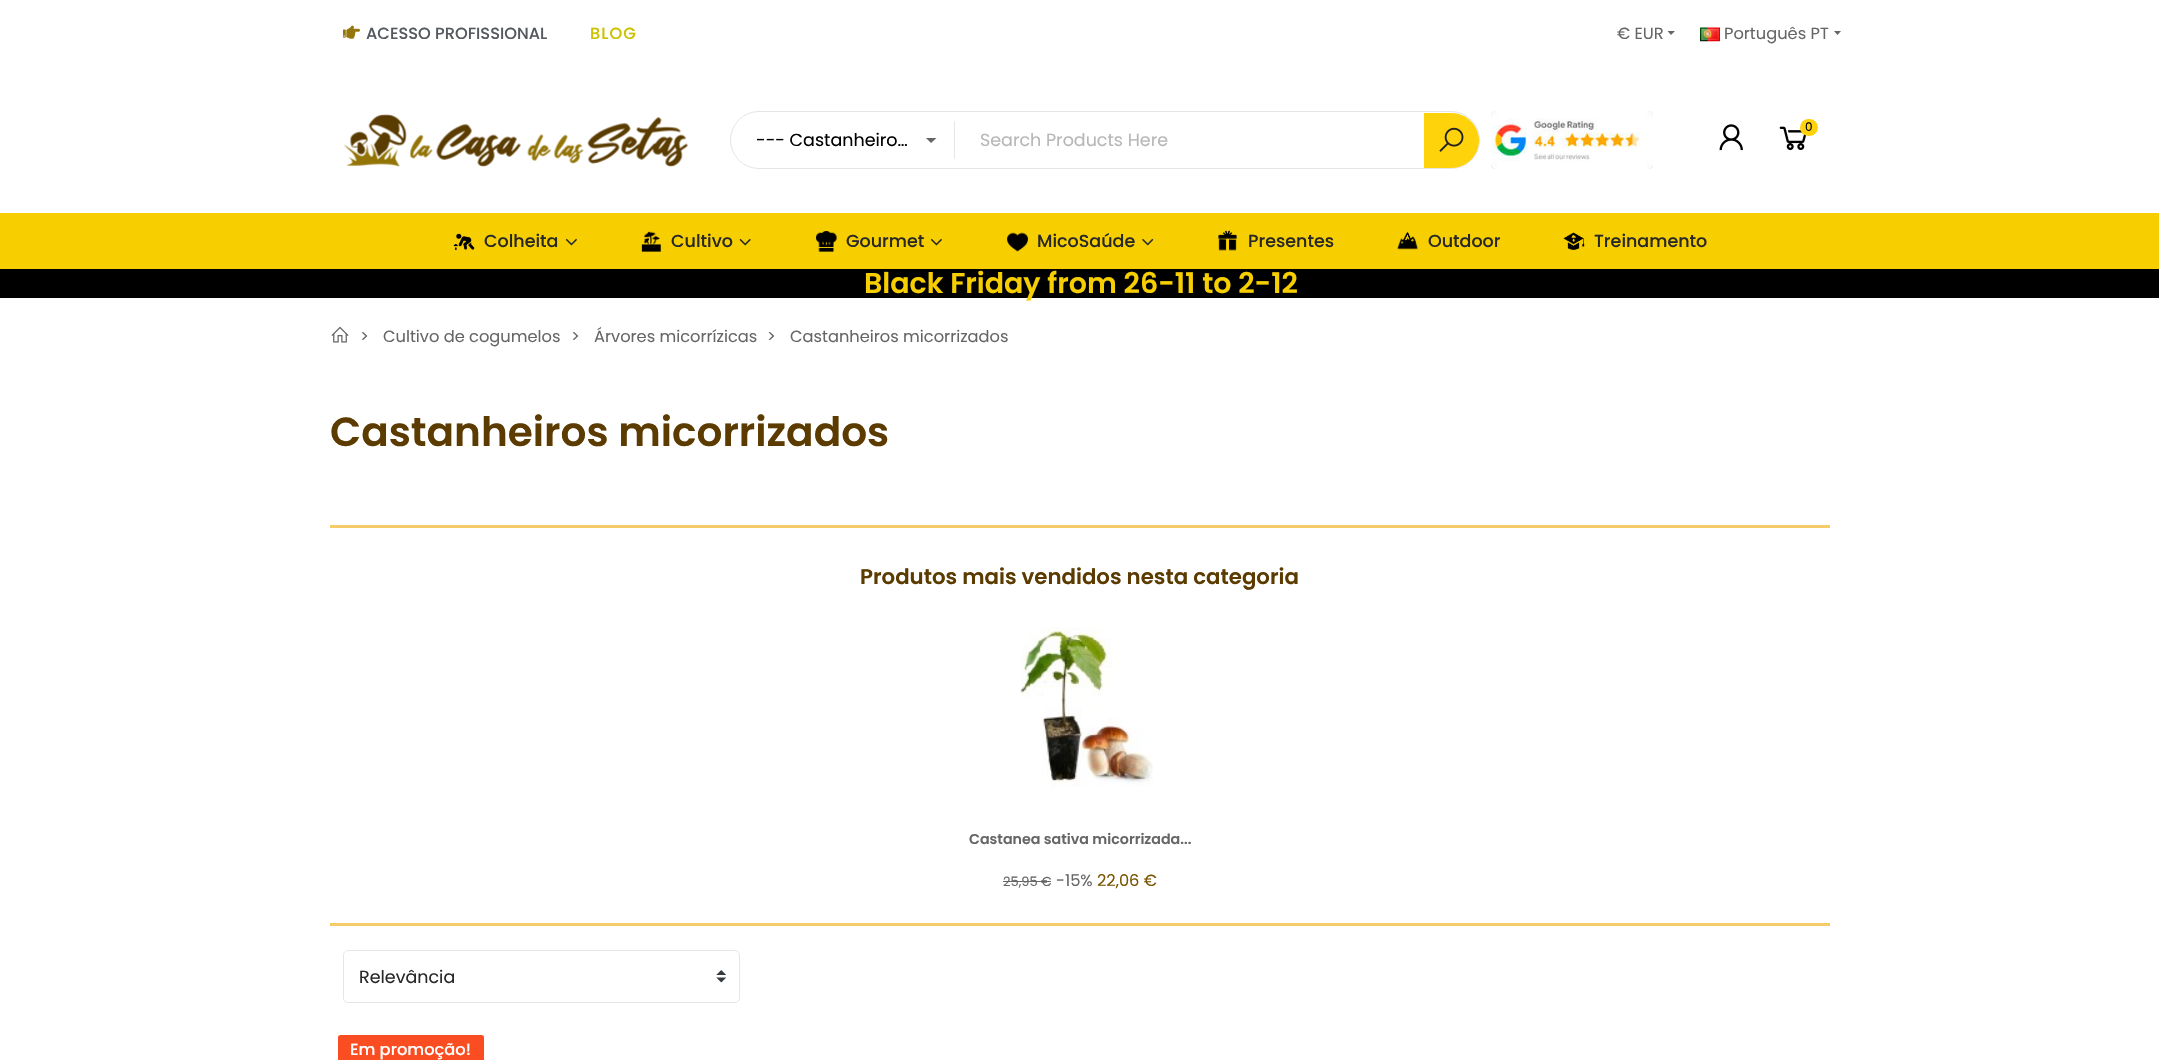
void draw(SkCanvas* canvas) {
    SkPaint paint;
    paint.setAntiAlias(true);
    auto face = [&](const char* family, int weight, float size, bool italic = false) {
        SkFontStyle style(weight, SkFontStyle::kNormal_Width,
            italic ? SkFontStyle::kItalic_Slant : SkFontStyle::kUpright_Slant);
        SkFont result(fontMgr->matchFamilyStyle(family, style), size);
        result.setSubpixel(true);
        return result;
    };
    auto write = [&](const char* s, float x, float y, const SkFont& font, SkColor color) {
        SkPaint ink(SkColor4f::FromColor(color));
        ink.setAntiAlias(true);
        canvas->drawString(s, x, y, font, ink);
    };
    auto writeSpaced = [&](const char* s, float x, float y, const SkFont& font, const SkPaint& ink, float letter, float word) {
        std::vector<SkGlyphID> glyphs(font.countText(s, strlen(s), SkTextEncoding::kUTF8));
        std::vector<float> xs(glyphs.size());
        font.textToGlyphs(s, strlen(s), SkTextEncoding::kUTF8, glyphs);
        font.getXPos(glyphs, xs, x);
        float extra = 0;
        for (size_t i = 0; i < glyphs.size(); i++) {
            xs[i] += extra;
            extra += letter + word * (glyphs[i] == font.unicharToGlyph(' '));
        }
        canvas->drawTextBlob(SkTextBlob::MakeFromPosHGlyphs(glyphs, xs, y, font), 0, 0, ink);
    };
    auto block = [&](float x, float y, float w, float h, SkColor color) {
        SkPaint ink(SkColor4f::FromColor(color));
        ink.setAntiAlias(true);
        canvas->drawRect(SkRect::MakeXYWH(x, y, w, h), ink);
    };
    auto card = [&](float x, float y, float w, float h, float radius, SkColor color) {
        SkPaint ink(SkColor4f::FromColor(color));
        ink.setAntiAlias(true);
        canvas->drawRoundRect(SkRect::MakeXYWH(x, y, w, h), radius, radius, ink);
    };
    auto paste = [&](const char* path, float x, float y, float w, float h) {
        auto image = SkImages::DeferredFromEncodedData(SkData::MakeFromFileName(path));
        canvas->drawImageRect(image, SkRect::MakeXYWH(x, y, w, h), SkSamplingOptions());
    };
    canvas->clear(SK_ColorWHITE);
    paste("pic1.png", 343, 25, 17, 14);
    auto kFont1 = face("Poppins", 500, 16.25f);
    write("ACESSO PROFISSIONAL", 366, 39, kFont1, SkColorSetRGB(84, 89, 95));
    paint.setColor(SkColorSetRGB(204, 193, 0));
    writeSpaced("BLOG", 590, 39, kFont1, paint, 1, 0);
    auto kFont2 = face("Poppins", 400, 16.25f);
    write("€ EUR", 1617, 39, kFont2, SkColorSetRGB(102, 102, 102));
    paint.setColor(SkColorSetRGB(102, 102, 102));
    canvas->drawPath(SkPathBuilder().moveTo(1667.5f, 31).lineTo(1675, 31).lineTo(1671, 35).close().detach(), paint);
    paste("pic2.png", 1700, 27, 20, 15);
    write("Português PT", 1724, 39, kFont2, SkColorSetRGB(102, 102, 102));
    canvas->drawPath(SkPathBuilder().moveTo(1834, 31).lineTo(1841, 31).lineTo(1837.5f, 35).close().detach(), paint);
    paste("pic3.png", 343, 114, 345, 53);
    paste("pic4.png", 1491, 111, 162, 58);
    paste("pic5.png", 1719, 124, 24, 27);
    paste("pic6.png", 1779, 126, 28, 25);
    card(1800, 119, 18, 17, 8.5f, SkColorSetRGB(254, 211, 11));
    auto kFont3 = face("Poppins", 400, 12);
    write("0", 1805, 131, kFont3, SK_ColorBLACK);
    paint.setStyle(SkPaint::kStroke_Style);
    paint.setStrokeWidth(1);
    paint.setColor(SkColorSetRGB(229, 229, 229));
    canvas->drawRoundRect(SkRect::MakeXYWH(730.5f, 111.5f, 749, 57), 28.5f, 28.5f, paint);
    auto kFont4 = face("Poppins", 400, 17.5f);
    write("--- Castanheiro…", 756, 146, kFont4, SK_ColorBLACK);
    paint.setStyle(SkPaint::kFill_Style);
    paint.setColor(SkColorSetRGB(102, 102, 102));
    canvas->drawPath(SkPathBuilder().moveTo(926, 138).lineTo(936.5f, 138).lineTo(931, 143).close().detach(), paint);
    block(954, 121, 1, 38, SkColorSetRGB(229, 229, 229));
    write("Search Products Here", 980, 146, kFont4, SkColorSetRGB(183, 183, 183));
    paint.setColor(SkColorSetRGB(254, 211, 11));
    canvas->drawPath(SkPathBuilder().moveTo(1424, 113).lineTo(1451.5f, 113).cubicTo(1466.5f, 113, 1479, 125.5f, 1479, 140.5f).cubicTo(1479, 155.5f, 1466.5f, 168, 1451.5f, 168).lineTo(1424, 168).close().detach(), paint);
    paste("pic7.png", 1439, 127, 25, 25);
    block(0, 213, 2159, 56, SkColorSetRGB(247, 206, 0));
    paste("pic8.png", 453, 233, 22, 18);
    auto kFont5 = face("Poppins", 500, 17.5f);
    write("Colheita", 484, 247, kFont5, SkColorSetRGB(40, 40, 40));
    paste("pic9.png", 565, 238, 12, 8);
    paste("pic10.png", 641, 231, 20, 21);
    write("Cultivo", 671, 247, kFont5, SkColorSetRGB(40, 40, 40));
    paste("pic11.png", 739, 238, 12, 8);
    paste("pic12.png", 816, 231, 21, 21);
    write("Gourmet", 846, 247, kFont5, SkColorSetRGB(40, 40, 40));
    paste("pic9.png", 930, 238, 12, 8);
    paste("pic13.png", 1007, 232, 21, 20);
    write("MicoSaúde", 1037, 247, kFont5, SkColorSetRGB(40, 40, 40));
    paste("pic14.png", 1142, 238, 12, 8);
    paste("pic15.png", 1218, 230, 19, 21);
    write("Presentes", 1248, 247, kFont5, SkColorSetRGB(40, 40, 40));
    paste("pic16.png", 1397, 232, 21, 18);
    write("Outdoor", 1428, 247, kFont5, SkColorSetRGB(40, 40, 40));
    paste("pic17.png", 1563, 232, 22, 18);
    write("Treinamento", 1594, 247, kFont5, SkColorSetRGB(40, 40, 40));
    block(0, 269, 2159, 29, SK_ColorBLACK);
    auto kFont6 = face("Poppins", 600, 28.5f);
    write("Black Friday from 26-11 to 2-12", 864, 293, kFont6, SkColorSetRGB(247, 206, 0));
    paste("pic18.png", 331, 326, 18, 17);
    write(">", 360, 342, kFont2, SkColorSetRGB(102, 102, 102));
    write("Cultivo de cogumelos", 383, 342, kFont2, SkColorSetRGB(102, 102, 102));
    write(">", 571, 342, kFont2, SkColorSetRGB(102, 102, 102));
    write("Árvores micorrízicas", 594, 342, kFont2, SkColorSetRGB(102, 102, 102));
    write(">", 767, 342, kFont2, SkColorSetRGB(102, 102, 102));
    write("Castanheiros micorrizados", 790, 342, kFont2, SkColorSetRGB(102, 102, 102));
    auto kFont7 = face("Poppins", 600, 40.6f);
    write("Castanheiros micorrizados", 330, 446, kFont7, SkColorSetRGB(91, 59, 0));
    block(330, 525, 1500, 3, SkColorSetRGB(245, 204, 103));
    block(330, 923, 1500, 3, SkColorSetRGB(245, 204, 103));
    auto kFont8 = face("Poppins", 600, 21.3f);
    write("Produtos mais vendidos nesta categoria", 860, 584, kFont8, SkColorSetRGB(91, 59, 0));
    paste("pic19.png", 1020, 627, 133, 160);
    auto kFont9 = face("Poppins", 600, 14.25f);
    write("Castanea sativa micorrizada...", 969, 844, kFont9, SkColorSetRGB(102, 102, 102));
    auto kFont10 = face("Poppins", 400, 13);
    write("25,95 €", 1003, 886, kFont10, SkColorSetRGB(102, 102, 102));
    block(1003, 881, 48, 1, SkColorSetRGB(102, 102, 102));
    write("-15%", 1056, 886, kFont2, SkColorSetRGB(102, 102, 102));
    write("22,06 €", 1097, 886, kFont2, SkColorSetRGB(122, 85, 0));
    paste("pic20.png", 716, 970, 10, 13);
    paint.setStyle(SkPaint::kStroke_Style);
    paint.setColor(SkColorSetRGB(230, 230, 230));
    canvas->drawRoundRect(SkRect::MakeXYWH(343.5f, 950.5f, 396, 52), 4.5f, 4.5f, paint);
    write("Relevância", 359, 983, kFont4, SkColorSetRGB(40, 40, 40));
    card(338, 1035, 146, 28, 2.5f, SkColorSetRGB(251, 77, 34));
    write("Em promoção!", 350, 1055, kFont1, SK_ColorWHITE);
}
